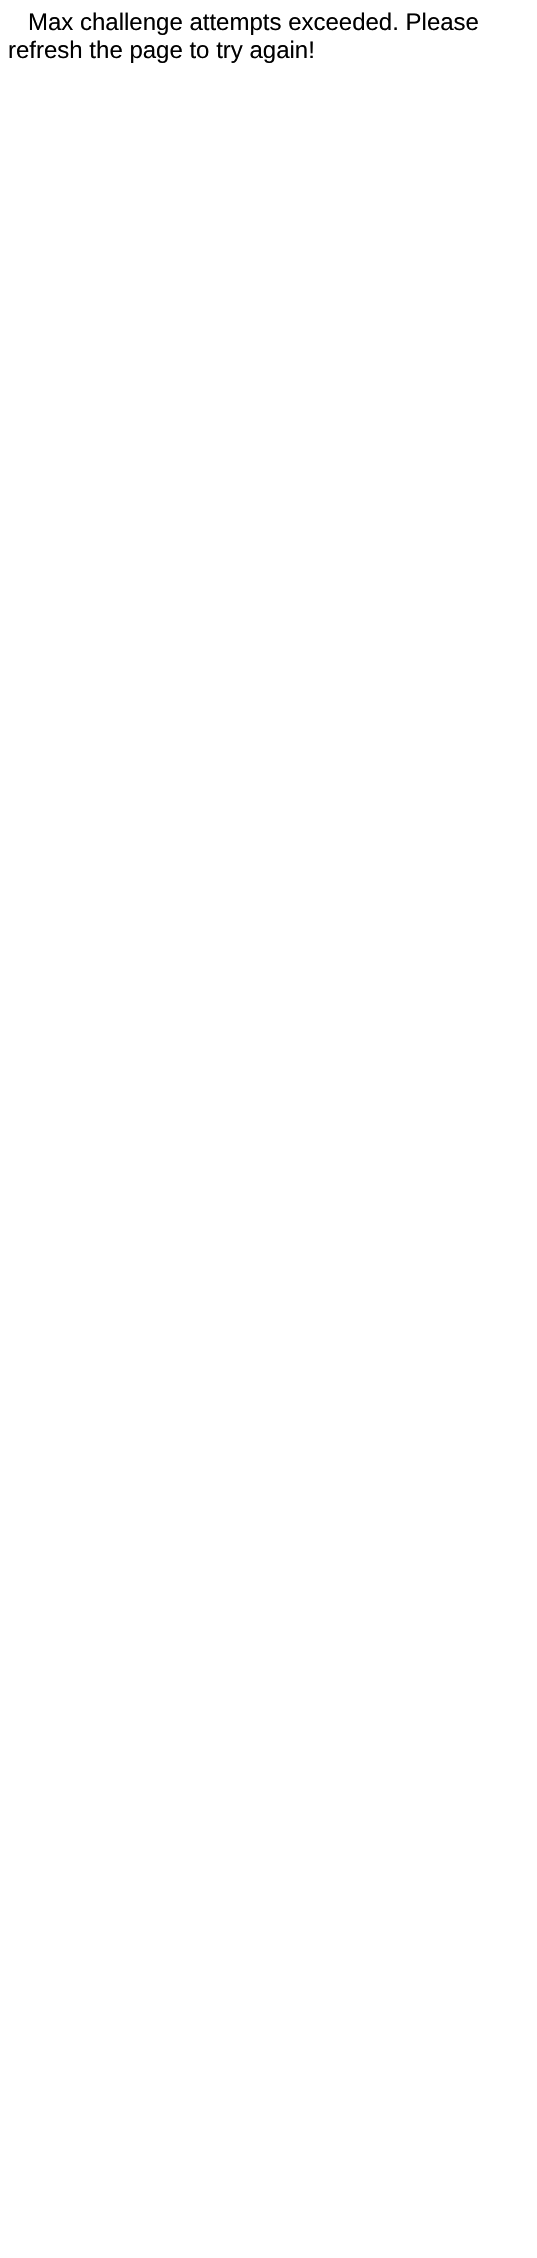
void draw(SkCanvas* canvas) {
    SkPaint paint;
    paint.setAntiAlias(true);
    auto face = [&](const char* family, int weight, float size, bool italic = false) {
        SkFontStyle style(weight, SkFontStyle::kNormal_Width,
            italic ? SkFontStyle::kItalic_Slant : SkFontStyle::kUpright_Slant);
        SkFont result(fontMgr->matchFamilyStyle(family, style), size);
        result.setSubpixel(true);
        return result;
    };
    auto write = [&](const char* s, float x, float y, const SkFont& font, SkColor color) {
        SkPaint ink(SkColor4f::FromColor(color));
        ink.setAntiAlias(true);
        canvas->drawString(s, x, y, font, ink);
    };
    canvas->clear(SK_ColorWHITE);
    auto kFont1 = face("Liberation Sans", 400, 24);
    write("Max challenge attempts exceeded. Please", 28, 30, kFont1, SK_ColorBLACK);
    write("refresh the page to try again!", 8, 58, kFont1, SK_ColorBLACK);
}
